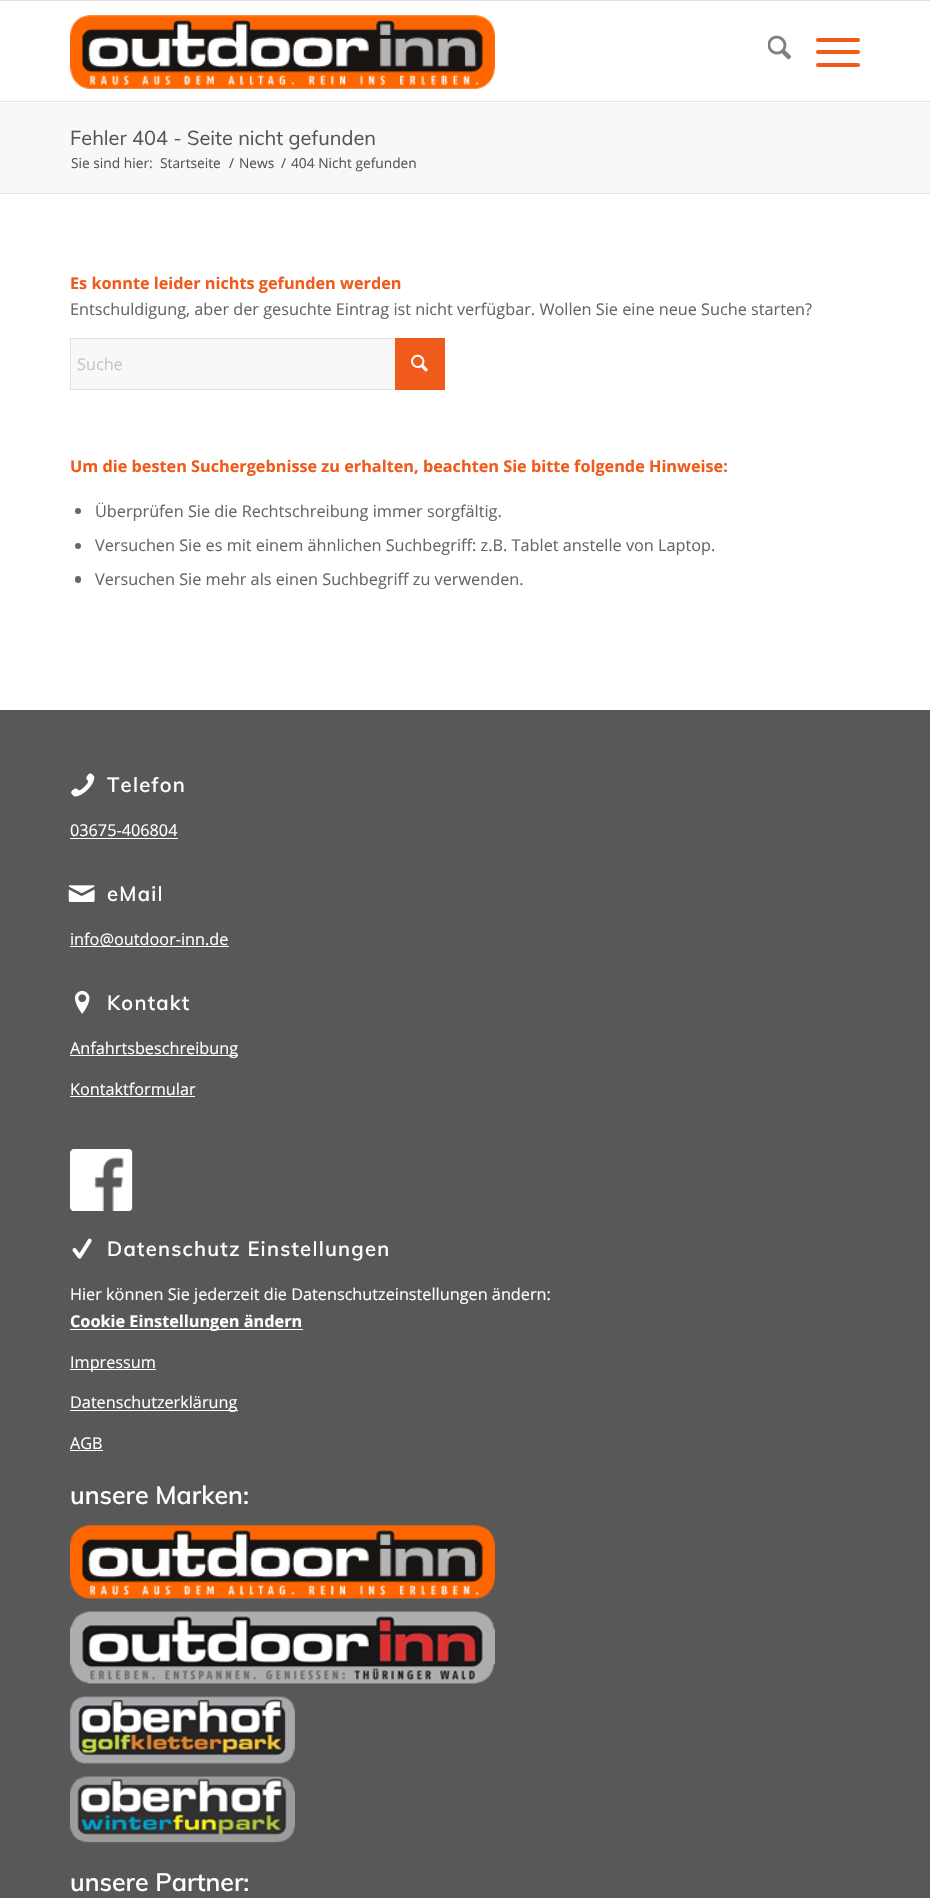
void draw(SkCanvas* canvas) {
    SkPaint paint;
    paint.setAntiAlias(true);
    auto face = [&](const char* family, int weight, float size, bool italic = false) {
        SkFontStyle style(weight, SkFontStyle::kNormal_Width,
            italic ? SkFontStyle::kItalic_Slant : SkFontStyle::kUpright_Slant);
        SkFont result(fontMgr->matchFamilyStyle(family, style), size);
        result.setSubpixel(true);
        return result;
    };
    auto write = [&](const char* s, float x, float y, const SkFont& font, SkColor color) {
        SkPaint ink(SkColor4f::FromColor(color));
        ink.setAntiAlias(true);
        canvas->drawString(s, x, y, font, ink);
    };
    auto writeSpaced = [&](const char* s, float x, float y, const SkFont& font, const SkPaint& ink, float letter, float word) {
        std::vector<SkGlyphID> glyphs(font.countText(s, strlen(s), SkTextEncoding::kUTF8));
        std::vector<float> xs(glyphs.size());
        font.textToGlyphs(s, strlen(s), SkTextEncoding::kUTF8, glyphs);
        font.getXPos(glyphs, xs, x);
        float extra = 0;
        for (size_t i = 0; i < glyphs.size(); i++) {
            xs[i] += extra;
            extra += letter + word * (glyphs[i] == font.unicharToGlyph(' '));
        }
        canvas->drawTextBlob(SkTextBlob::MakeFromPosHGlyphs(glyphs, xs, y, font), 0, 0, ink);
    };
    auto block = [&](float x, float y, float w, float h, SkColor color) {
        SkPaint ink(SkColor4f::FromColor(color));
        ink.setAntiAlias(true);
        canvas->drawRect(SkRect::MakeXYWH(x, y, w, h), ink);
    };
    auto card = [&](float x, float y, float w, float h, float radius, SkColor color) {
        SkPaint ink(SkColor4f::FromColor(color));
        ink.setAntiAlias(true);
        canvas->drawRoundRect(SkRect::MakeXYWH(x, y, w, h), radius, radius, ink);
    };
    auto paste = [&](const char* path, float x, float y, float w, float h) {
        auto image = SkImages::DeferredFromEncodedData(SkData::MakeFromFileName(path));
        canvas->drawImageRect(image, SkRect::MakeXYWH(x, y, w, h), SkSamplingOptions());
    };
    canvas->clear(SK_ColorWHITE);
    block(0, 0, 930, 1, SkColorSetRGB(225, 225, 225));
    block(0, 101, 930, 1, SkColorSetRGB(225, 225, 225));
    paste("pic1.png", 70, 15, 425, 74);
    paste("pic2.png", 768, 35, 23, 25);
    card(816, 50, 44, 4, 2, SkColorSetRGB(240, 90, 26));
    card(816, 38, 44, 4, 2, SkColorSetRGB(240, 90, 26));
    card(816, 63, 44, 4, 2, SkColorSetRGB(240, 90, 26));
    block(0, 103, 930, 90, SkColorSetRGB(248, 248, 248));
    auto kFont1 = face("Muli", 400, 20);
    write("Fehler 404 - Seite nicht gefunden", 70, 145, kFont1, SkColorSetRGB(85, 85, 85));
    auto kFont2 = face("Open Sans", 400, 13.75f);
    write("Sie sind hier:", 71, 168, kFont2, SkColorSetRGB(85, 85, 85));
    write("Startseite", 160, 168, kFont2, SkColorSetRGB(85, 85, 85));
    write("/", 229, 168, kFont2, SkColorSetRGB(85, 85, 85));
    write("News", 239, 168, kFont2, SkColorSetRGB(85, 85, 85));
    write("/", 281, 168, kFont2, SkColorSetRGB(85, 85, 85));
    write("404 Nicht gefunden", 291, 168, kFont2, SkColorSetRGB(85, 85, 85));
    block(0, 193, 930, 1, SkColorSetRGB(225, 225, 225));
    auto kFont3 = face("Open Sans", 700, 16.25f);
    write("Es konnte leider nichts gefunden werden", 70, 289, kFont3, SkColorSetRGB(240, 90, 26));
    auto kFont4 = face("Open Sans", 400, 16.25f);
    write("Entschuldigung, aber der gesuchte Eintrag ist nicht verfügbar. Wollen Sie eine neue Suche starten?", 70, 315, kFont4, SkColorSetRGB(102, 102, 102));
    block(71, 339, 324, 50, SkColorSetRGB(248, 248, 248));
    paint.setStyle(SkPaint::kStroke_Style);
    paint.setStrokeWidth(1);
    paint.setColor(SkColorSetRGB(225, 225, 225));
    canvas->drawRect(SkRect::MakeXYWH(70.5f, 338.5f, 374, 51), paint);
    block(395, 338, 50, 52, SkColorSetRGB(240, 90, 26));
    write("Suche", 77, 370, kFont4, SkColorSetRGB(197, 197, 197));
    paste("pic3.png", 411, 354, 17, 18);
    write("Um die besten Suchergebnisse zu erhalten, beachten Sie bitte folgende Hinweise:", 70, 472, kFont3, SkColorSetRGB(240, 90, 26));
    paint.setStyle(SkPaint::kFill_Style);
    paint.setColor(SkColorSetRGB(102, 102, 102));
    canvas->drawCircle(78, 511, 3, paint);
    write("Überprüfen Sie die Rechtschreibung immer sorgfältig.", 95, 517, kFont4, SkColorSetRGB(102, 102, 102));
    canvas->drawCircle(78, 546, 3, paint);
    write("Versuchen Sie es mit einem ähnlichen Suchbegriff: z.B. Tablet anstelle von Laptop.", 95, 551, kFont4, SkColorSetRGB(102, 102, 102));
    card(75, 576, 6, 7, 3, SkColorSetRGB(102, 102, 102));
    write("Versuchen Sie mehr als einen Suchbegriff zu verwenden.", 95, 585, kFont4, SkColorSetRGB(102, 102, 102));
    block(0, 710, 930, 1188, SkColorSetRGB(88, 88, 88));
    paste("pic4.png", 71, 773, 24, 24);
    auto kFont5 = face("Muli", 600, 20.25f);
    paint.setColor(SK_ColorWHITE);
    writeSpaced("Telefon", 107, 792, kFont5, paint, 1.25f, 0);
    write("03675-406804", 70, 836, kFont4, SK_ColorWHITE);
    block(70, 838, 108, 1, SK_ColorWHITE);
    paste("pic5.png", 68, 885, 27, 17);
    writeSpaced("eMail", 107, 901, kFont5, paint, 1.25f, 0);
    block(70, 946, 159, 1, SK_ColorWHITE);
    write("info@outdoor-inn.de", 70, 945, kFont4, SK_ColorWHITE);
    paste("pic6.png", 75, 990, 15, 24);
    writeSpaced("Kontakt", 107, 1010, kFont5, paint, 1.25f, 0);
    block(70, 1055, 168, 1, SK_ColorWHITE);
    write("Anfahrtsbeschreibung", 70, 1054, kFont4, SK_ColorWHITE);
    write("Kontaktformular", 70, 1095, kFont4, SK_ColorWHITE);
    block(70, 1096, 125, 1, SK_ColorWHITE);
    paste("pic7.png", 70, 1149, 63, 62);
    paste("pic8.png", 72, 1238, 20, 21);
    writeSpaced("Datenschutz Einstellungen", 107, 1256, kFont5, paint, 1.25f, 0);
    write("Hier können Sie jederzeit die Datenschutzeinstellungen ändern:", 70, 1300, kFont4, SK_ColorWHITE);
    block(70, 1329, 233, 1, SK_ColorWHITE);
    write("Cookie Einstellungen ändern", 70, 1327, kFont3, SK_ColorWHITE);
    block(70, 1369, 86, 1, SK_ColorWHITE);
    write("Impressum", 70, 1368, kFont4, SK_ColorWHITE);
    block(70, 1410, 168, 1, SK_ColorWHITE);
    write("Datenschutzerklärung", 70, 1408, kFont4, SK_ColorWHITE);
    write("AGB", 70, 1449, kFont4, SK_ColorWHITE);
    block(70, 1450, 33, 1, SK_ColorWHITE);
    auto kFont6 = face("Muli", 600, 25);
    write("unsere Marken:", 70, 1504, kFont6, SK_ColorWHITE);
    paste("pic9.png", 70, 1525, 425, 74);
    paste("pic10.png", 70, 1611, 425, 73);
    paste("pic11.png", 70, 1696, 225, 68);
    paste("pic12.png", 70, 1776, 225, 67);
    write("unsere Partner:", 70, 1891, kFont6, SK_ColorWHITE);
}
